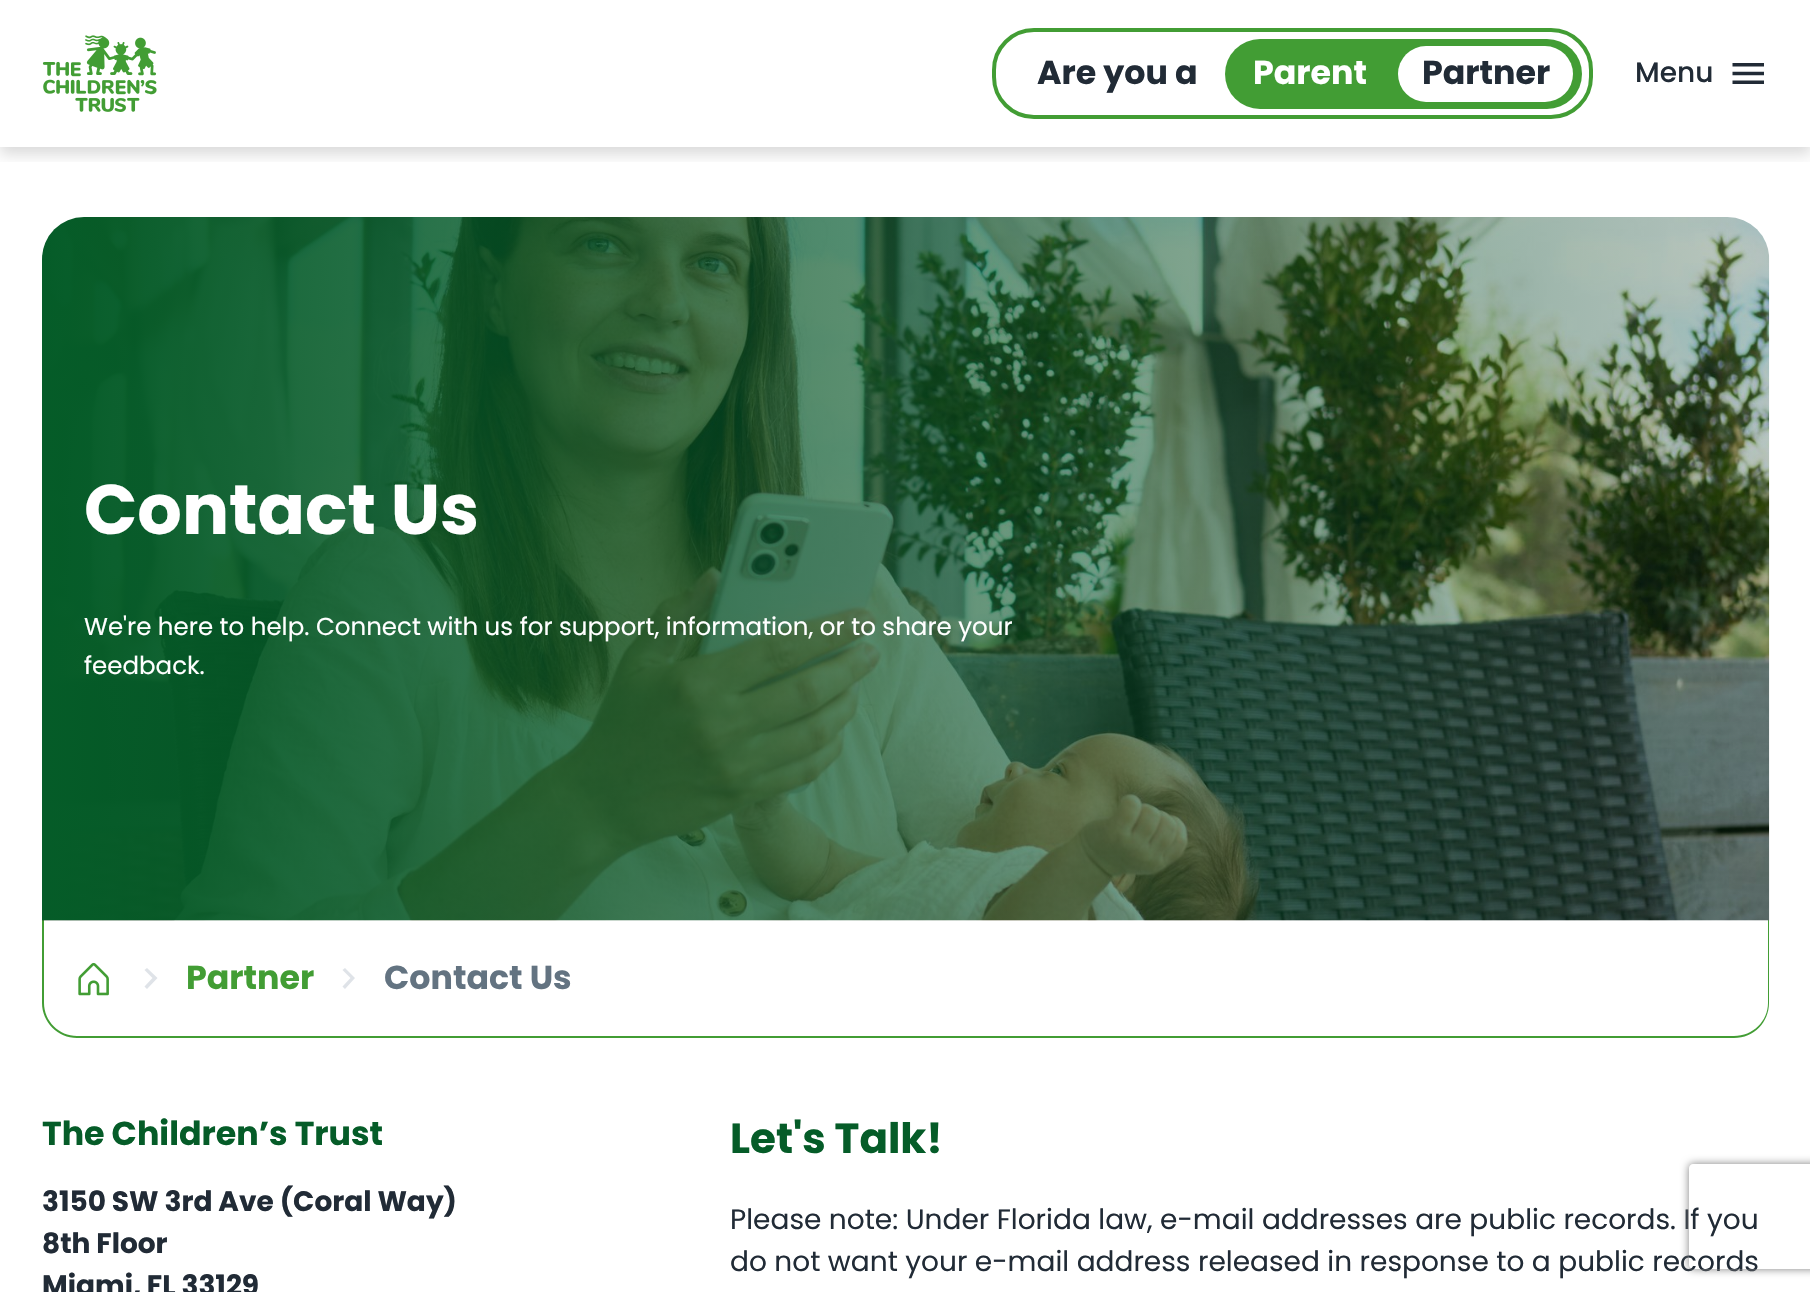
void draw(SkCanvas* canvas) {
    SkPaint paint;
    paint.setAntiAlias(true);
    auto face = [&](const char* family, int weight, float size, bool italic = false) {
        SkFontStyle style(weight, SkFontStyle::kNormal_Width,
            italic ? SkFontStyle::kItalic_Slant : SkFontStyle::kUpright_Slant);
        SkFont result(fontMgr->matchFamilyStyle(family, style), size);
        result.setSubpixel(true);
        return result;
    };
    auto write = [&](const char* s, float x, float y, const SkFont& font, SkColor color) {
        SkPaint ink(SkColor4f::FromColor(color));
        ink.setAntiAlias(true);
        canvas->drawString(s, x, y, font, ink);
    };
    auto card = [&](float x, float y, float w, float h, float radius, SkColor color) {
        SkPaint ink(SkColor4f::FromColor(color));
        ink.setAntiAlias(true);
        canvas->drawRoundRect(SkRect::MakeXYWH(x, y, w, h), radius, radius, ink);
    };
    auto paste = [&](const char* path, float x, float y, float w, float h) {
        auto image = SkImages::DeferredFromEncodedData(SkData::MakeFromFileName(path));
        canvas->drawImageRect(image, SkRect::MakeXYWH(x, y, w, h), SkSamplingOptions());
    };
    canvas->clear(SK_ColorWHITE);
    canvas->save();
    canvas->clipRect(SkRect::MakeXYWH(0, 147, 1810, 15));
    paint.setColor(SkColorSetARGB(38, 0, 0, 0));
    paint.setMaskFilter(SkMaskFilter::MakeBlur(kNormal_SkBlurStyle, 7));
    canvas->drawRect(SkRect::MakeXYWH(0, 7, 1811, 147), paint);
    paint.setMaskFilter(nullptr);
    canvas->restore();
    paste("pic1.png", 42, 35, 115, 77);
    paint.setStyle(SkPaint::kStroke_Style);
    paint.setStrokeWidth(4);
    paint.setColor(SkColorSetRGB(66, 157, 52));
    canvas->drawRoundRect(SkRect::MakeXYWH(994, 30, 597, 87), 40, 40, paint);
    auto kFont1 = face("Poppins", 700, 33.25f);
    write("Are you a", 1037, 84, kFont1, SkColorSetRGB(33, 43, 54));
    card(1225, 39, 357, 70, 35, SkColorSetRGB(66, 157, 52));
    write("Parent", 1253, 84, kFont1, SK_ColorWHITE);
    card(1398, 46, 175, 56, 28, SK_ColorWHITE);
    write("Partner", 1422, 84, kFont1, SkColorSetRGB(33, 43, 54));
    auto kFont2 = face("Poppins", 500, 28);
    write("Menu", 1635, 82, kFont2, SkColorSetRGB(33, 43, 54));
    paste("pic2.png", 1732, 63, 32, 21);
    paint.setStyle(SkPaint::kFill_Style);
    canvas->drawPath(SkPathBuilder(SkPathFillType::kEvenOdd).moveTo(42, 920).lineTo(1769, 920).lineTo(1769, 1003).cubicTo(1769, 1022, 1754, 1038, 1734, 1038).lineTo(77, 1038).cubicTo(58, 1038, 42, 1022, 42, 1003).close().moveTo(44, 920).lineTo(1768, 920).lineTo(1768, 1003).cubicTo(1768, 1021, 1753, 1036, 1734, 1036).lineTo(77, 1036).cubicTo(59, 1036, 44, 1021, 44, 1003).close().detach(), paint);
    paste("pic3.png", 42, 217, 1728, 704);
    auto kFont3 = face("Poppins", 700, 70);
    write("Contact Us", 84, 534, kFont3, SK_ColorWHITE);
    auto kFont4 = face("Poppins", 400, 24.5f);
    write("We're here to help. Connect with us for support, information, or to share your", 84, 635, kFont4, SK_ColorWHITE);
    write("feedback.", 84, 674, kFont4, SK_ColorWHITE);
    paste("pic4.png", 78, 962, 31, 34);
    paint.setColor(SkColorSetRGB(223, 227, 232));
    canvas->drawPath(SkPathBuilder().moveTo(147, 968).lineTo(144.5f, 970).lineTo(152.5f, 978).lineTo(144.5f, 986.5f).lineTo(147, 989).lineTo(157.5f, 978).close().detach(), paint);
    write("Partner", 186, 989, kFont1, SkColorSetRGB(66, 157, 52));
    canvas->drawPath(SkPathBuilder().moveTo(345, 968).lineTo(342.5f, 970).lineTo(350.5f, 978).lineTo(342.5f, 986.5f).lineTo(345, 989).lineTo(355, 978).close().detach(), paint);
    write("Contact Us", 384, 989, kFont1, SkColorSetRGB(99, 115, 129));
    write("The Children’s Trust", 42, 1145, kFont1, SkColorSetRGB(5, 92, 40));
    auto kFont5 = face("Poppins", 700, 28);
    write("3150 SW 3rd Ave (Coral Way)", 42, 1211, kFont5, SkColorSetRGB(33, 43, 54));
    write("8th Floor", 42, 1253, kFont5, SkColorSetRGB(33, 43, 54));
    write("Miami, FL 33129", 42, 1295, kFont5, SkColorSetRGB(33, 43, 54));
    auto kFont6 = face("Poppins", 700, 42);
    write("Let's Talk!", 730, 1153, kFont6, SkColorSetRGB(5, 92, 40));
    auto kFont7 = face("Poppins", 400, 28);
    write("Please note: Under Florida law, e-mail addresses are public records. If you", 730, 1229, kFont7, SkColorSetRGB(33, 43, 54));
    write("do not want your e-mail address released in response to a public records", 730, 1271, kFont7, SkColorSetRGB(33, 43, 54));
    canvas->save();
    canvas->clipPath(SkPathBuilder(SkPathFillType::kEvenOdd).moveTo(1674, 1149).lineTo(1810, 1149).lineTo(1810, 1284).lineTo(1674, 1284).close().moveTo(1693, 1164).lineTo(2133, 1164).cubicTo(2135, 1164, 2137, 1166, 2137, 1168).lineTo(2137, 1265).cubicTo(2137, 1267, 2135, 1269, 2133, 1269).lineTo(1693, 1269).cubicTo(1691, 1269, 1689, 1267, 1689, 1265).lineTo(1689, 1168).cubicTo(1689, 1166, 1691, 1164, 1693, 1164).close().detach(), true);
    paint.setColor(SkColorSetRGB(128, 128, 128));
    paint.setMaskFilter(SkMaskFilter::MakeBlur(kNormal_SkBlurStyle, 4.5f));
    canvas->drawRoundRect(SkRect::MakeXYWH(1689, 1164, 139, 105), 4, 4, paint);
    paint.setMaskFilter(nullptr);
    canvas->restore();
}
